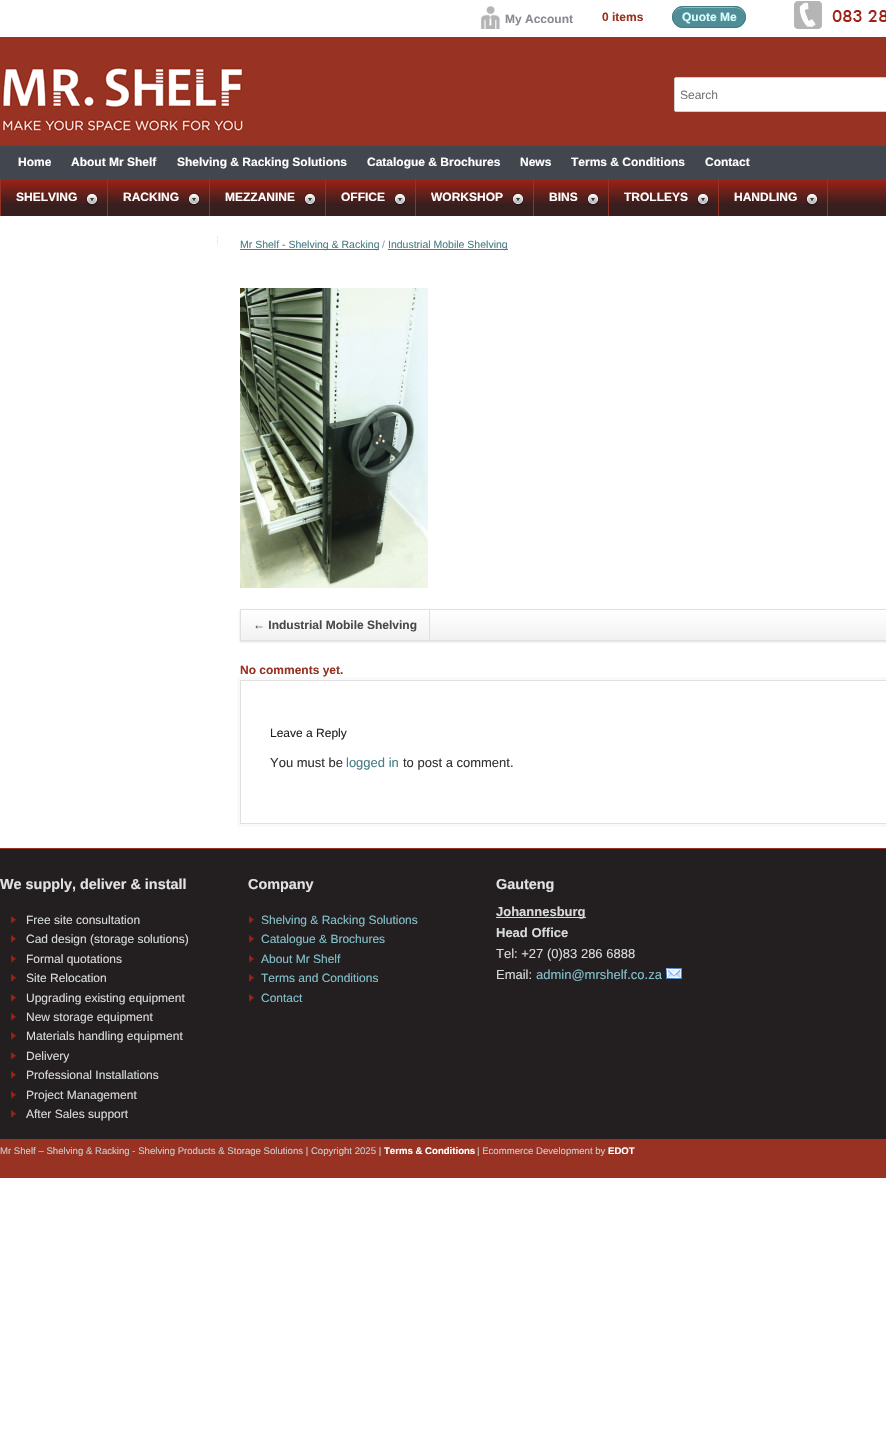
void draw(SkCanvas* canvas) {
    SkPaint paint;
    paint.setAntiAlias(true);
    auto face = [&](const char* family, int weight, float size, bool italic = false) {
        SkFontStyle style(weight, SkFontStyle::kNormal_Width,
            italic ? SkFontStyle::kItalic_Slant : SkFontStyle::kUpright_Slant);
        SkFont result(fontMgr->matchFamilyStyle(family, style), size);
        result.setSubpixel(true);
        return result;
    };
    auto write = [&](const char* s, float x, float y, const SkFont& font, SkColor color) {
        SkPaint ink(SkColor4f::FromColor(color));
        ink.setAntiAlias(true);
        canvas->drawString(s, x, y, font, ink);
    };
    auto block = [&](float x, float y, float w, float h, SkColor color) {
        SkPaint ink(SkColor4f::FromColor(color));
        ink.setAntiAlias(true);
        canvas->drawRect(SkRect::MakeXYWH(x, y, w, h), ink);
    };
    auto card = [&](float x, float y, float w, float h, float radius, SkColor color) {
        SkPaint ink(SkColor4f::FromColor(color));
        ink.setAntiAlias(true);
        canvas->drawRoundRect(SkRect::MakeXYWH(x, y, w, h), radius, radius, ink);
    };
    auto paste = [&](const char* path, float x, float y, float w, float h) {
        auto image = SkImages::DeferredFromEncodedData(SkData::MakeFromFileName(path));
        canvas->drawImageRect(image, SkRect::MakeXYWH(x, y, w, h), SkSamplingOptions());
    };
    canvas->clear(SK_ColorWHITE);
    paste("pic1.png", 1, 179, 1, 37);
    block(0, 37, 886, 109, SkColorSetRGB(152, 50, 34));
    paste("pic2.png", 794, 1, 92, 28);
    paste("pic3.png", 480, 6, 20, 23);
    auto kFont1 = face("Liberation Sans", 700, 12);
    write("My Account", 505, 23, kFont1, SkColorSetRGB(135, 138, 144));
    write("0 items", 602, 21, kFont1, SkColorSetRGB(152, 50, 34));
    card(672, 6, 74, 22, 11, SkColorSetRGB(80, 141, 150));
    paint.setColor(SkColorSetRGB(131, 192, 201));
    canvas->drawPath(SkPathBuilder().moveTo(683, 8).lineTo(735, 8).cubicTo(741, 8, 745, 12, 745, 17).cubicTo(746, 6, 734, 7, 726, 7).lineTo(692, 7).cubicTo(684, 7, 672, 6, 673, 17).cubicTo(673, 12, 677, 8, 683, 8).close().detach(), paint);
    paint.setStyle(SkPaint::kStroke_Style);
    paint.setStrokeWidth(1);
    paint.setColor(SkColorSetRGB(63, 124, 133));
    canvas->drawRoundRect(SkRect::MakeXYWH(672.5f, 6.5f, 73, 21), 10.5f, 10.5f, paint);
    write("Quote Me", 682, 21, kFont1, SkColorSetRGB(216, 255, 255));
    paste("pic4.png", 2, 67, 242, 65);
    paint.setStyle(SkPaint::kFill_Style);
    paint.setColor(SK_ColorWHITE);
    canvas->drawPath(SkPathBuilder().moveTo(676, 77.5f).lineTo(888.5f, 77.5f).lineTo(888.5f, 111.5f).lineTo(676, 111.5f).cubicTo(675, 111.5f, 674.5f, 111, 674.5f, 110).lineTo(674.5f, 79).cubicTo(674.5f, 78, 675, 77.5f, 676, 77.5f).close().detach(), paint);
    paint.setStyle(SkPaint::kStroke_Style);
    paint.setColor(SkColorSetRGB(207, 207, 207));
    canvas->drawPath(SkPathBuilder().moveTo(676, 77.5f).lineTo(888.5f, 77.5f).lineTo(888.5f, 111.5f).lineTo(676, 111.5f).cubicTo(675, 111.5f, 674.5f, 111, 674.5f, 110).lineTo(674.5f, 79).cubicTo(674.5f, 78, 675, 77.5f, 676, 77.5f).close().detach(), paint);
    auto kFont2 = face("Liberation Sans", 400, 12);
    write("Search", 680, 99, kFont2, SkColorSetRGB(117, 117, 117));
    block(0, 146, 886, 33, SkColorSetRGB(66, 70, 79));
    write("Home", 18, 166, kFont1, SK_ColorWHITE);
    write("About Mr Shelf", 71, 166, kFont1, SK_ColorWHITE);
    write("Shelving & Racking Solutions", 177, 166, kFont1, SK_ColorWHITE);
    write("Catalogue & Brochures", 367, 166, kFont1, SK_ColorWHITE);
    write("News", 520, 166, kFont1, SK_ColorWHITE);
    write("Terms & Conditions", 571, 166, kFont1, SK_ColorWHITE);
    write("Contact", 705, 166, kFont1, SK_ColorWHITE);
    paint.setStyle(SkPaint::kFill_Style);
    {
        const SkColor colors[] = {SkColorSetRGB(159, 33, 22), SkColorSetRGB(54, 31, 30)};
        const float stops[] = {0, 0.7f};
        const SkPoint ends[] = {{480, 179}, {480, 216}};
        paint.setShader(SkGradientShader::MakeLinear(ends, colors, stops, 2, SkTileMode::kClamp));
        paint.setAlpha(255);
    }
    canvas->drawRoundRect(SkRect::MakeXYWH(0, 179, 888, 37), 2, 2, paint);
    block(0, 179, 1, 37, SkColorSetRGB(152, 50, 34));
    block(107, 179, 1, 37, SkColorSetRGB(152, 50, 34));
    write("SHELVING", 16, 201, kFont1, SK_ColorWHITE);
    paste("pic5.png", 86, 193, 12, 13);
    block(209, 179, 1, 37, SkColorSetRGB(152, 50, 34));
    write("RACKING", 123, 201, kFont1, SK_ColorWHITE);
    paste("pic5.png", 188, 193, 12, 13);
    block(325, 179, 1, 37, SkColorSetRGB(152, 50, 34));
    write("MEZZANINE", 225, 201, kFont1, SK_ColorWHITE);
    paste("pic5.png", 304, 193, 12, 13);
    block(415, 179, 1, 37, SkColorSetRGB(152, 50, 34));
    write("OFFICE", 341, 201, kFont1, SK_ColorWHITE);
    paste("pic5.png", 394, 193, 12, 13);
    block(533, 179, 1, 37, SkColorSetRGB(152, 50, 34));
    write("WORKSHOP", 431, 201, kFont1, SK_ColorWHITE);
    paste("pic5.png", 512, 193, 12, 13);
    block(608, 179, 1, 37, SkColorSetRGB(152, 50, 34));
    write("BINS", 549, 201, kFont1, SK_ColorWHITE);
    paste("pic5.png", 587, 193, 12, 13);
    block(718, 179, 1, 37, SkColorSetRGB(152, 50, 34));
    write("TROLLEYS", 624, 201, kFont1, SK_ColorWHITE);
    paste("pic5.png", 697, 193, 12, 13);
    block(827, 179, 1, 37, SkColorSetRGB(152, 50, 34));
    write("HANDLING", 734, 201, kFont1, SK_ColorWHITE);
    paste("pic5.png", 806, 193, 12, 13);
    paint.setStyle(SkPaint::kStroke_Style);
    paint.setShader(nullptr);
    paint.setColor(SkColorSetRGB(218, 220, 221));
    paint.setPathEffect(SkDashPathEffect::Make({{1, 1}}, 0));
    canvas->drawPath(SkPathBuilder().moveTo(217.5f, 236).lineTo(217.5f, 246).detach(), paint);
    paint.setPathEffect(nullptr);
    block(240, 249, 139, 1, SkColorSetRGB(71, 125, 133));
    auto kFont3 = face("Liberation Sans", 400, 10.5f);
    write("Mr Shelf - Shelving & Racking", 240, 248, kFont3, SkColorSetRGB(71, 125, 133));
    write("/", 382, 248, kFont3, SkColorSetRGB(158, 158, 158));
    block(388, 249, 120, 1, SkColorSetRGB(71, 125, 133));
    write("Industrial Mobile Shelving", 388, 248, kFont3, SkColorSetRGB(71, 125, 133));
    paste("pic6.png", 240, 288, 188, 300);
    paint.setStyle(SkPaint::kFill_Style);
    paint.setColor(SkColorSetRGB(224, 224, 224));
    paint.setMaskFilter(SkMaskFilter::MakeBlur(kNormal_SkBlurStyle, 1));
    canvas->drawRect(SkRect::MakeXYWH(240, 610, 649, 32), paint);
    paint.setMaskFilter(nullptr);
    {
        const SkColor colors[] = {SK_ColorWHITE, SkColorSetRGB(241, 241, 241)};
        const float stops[] = {0, 1};
        const SkPoint ends[] = {{600, 610}, {600, 640}};
        paint.setShader(SkGradientShader::MakeLinear(ends, colors, stops, 2, SkTileMode::kClamp));
        paint.setAlpha(255);
    }
    canvas->drawRect(SkRect::MakeXYWH(241, 610, 645, 30), paint);
    paint.setStyle(SkPaint::kStroke_Style);
    paint.setShader(nullptr);
    paint.setColor(SkColorSetRGB(224, 224, 224));
    canvas->drawRect(SkRect::MakeXYWH(240.5f, 609.5f, 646, 31), paint);
    block(429, 610, 1, 30, SkColorSetRGB(224, 224, 224));
    write("← Industrial Mobile Shelving", 253, 629, kFont1, SkColorSetRGB(73, 73, 73));
    write("No comments yet.", 240, 674, kFont1, SkColorSetRGB(152, 50, 34));
    paint.setStrokeWidth(3);
    paint.setColor(SkColorSetRGB(249, 249, 249));
    canvas->drawRect(SkRect::MakeXYWH(238.5f, 678.5f, 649, 147), paint);
    paint.setStrokeWidth(1);
    paint.setColor(SkColorSetRGB(224, 224, 224));
    canvas->drawRect(SkRect::MakeXYWH(240.5f, 680.5f, 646, 143), paint);
    write("Leave a Reply", 270, 737, kFont2, SkColorSetRGB(35, 31, 32));
    auto kFont4 = face("Liberation Sans", 400, 13);
    write("You must be", 270, 767, kFont4, SkColorSetRGB(51, 51, 51));
    write("logged in", 346, 767, kFont4, SkColorSetRGB(71, 125, 133));
    write("to post a comment.", 403, 767, kFont4, SkColorSetRGB(51, 51, 51));
    block(0, 849, 886, 290, SkColorSetRGB(35, 31, 32));
    block(0, 848, 886, 1, SkColorSetRGB(152, 50, 34));
    block(0, 1139, 886, 39, SkColorSetRGB(152, 50, 34));
    auto kFont5 = face("Liberation Sans", 700, 14.4f);
    write("We supply, deliver & install", 0, 889, kFont5, SkColorSetRGB(226, 226, 226));
    paste("pic7.png", 11, 916, 5, 8);
    write("Free site consultation", 26, 924, kFont2, SkColorSetRGB(216, 218, 219));
    paste("pic7.png", 11, 935, 5, 8);
    write("Cad design (storage solutions)", 26, 943, kFont2, SkColorSetRGB(216, 218, 219));
    paste("pic7.png", 11, 955, 5, 8);
    write("Formal quotations", 26, 963, kFont2, SkColorSetRGB(216, 218, 219));
    paste("pic7.png", 11, 974, 5, 8);
    write("Site Relocation", 26, 982, kFont2, SkColorSetRGB(216, 218, 219));
    paste("pic7.png", 11, 994, 5, 8);
    write("Upgrading existing equipment", 26, 1002, kFont2, SkColorSetRGB(216, 218, 219));
    paste("pic7.png", 11, 1013, 5, 8);
    write("New storage equipment", 26, 1021, kFont2, SkColorSetRGB(216, 218, 219));
    paste("pic7.png", 11, 1032, 5, 8);
    write("Materials handling equipment", 26, 1040, kFont2, SkColorSetRGB(216, 218, 219));
    paste("pic7.png", 11, 1052, 5, 8);
    write("Delivery", 26, 1060, kFont2, SkColorSetRGB(216, 218, 219));
    paste("pic7.png", 11, 1071, 5, 8);
    write("Professional Installations", 26, 1079, kFont2, SkColorSetRGB(216, 218, 219));
    paste("pic7.png", 11, 1091, 5, 8);
    write("Project Management", 26, 1099, kFont2, SkColorSetRGB(216, 218, 219));
    paste("pic7.png", 11, 1110, 5, 8);
    write("After Sales support", 26, 1118, kFont2, SkColorSetRGB(216, 218, 219));
    write("Company", 248, 889, kFont5, SkColorSetRGB(226, 226, 226));
    paste("pic7.png", 249, 916, 5, 8);
    write("Shelving & Racking Solutions", 261, 924, kFont2, SkColorSetRGB(131, 192, 201));
    paste("pic7.png", 249, 935, 5, 8);
    write("Catalogue & Brochures", 261, 943, kFont2, SkColorSetRGB(131, 192, 201));
    paste("pic7.png", 249, 955, 5, 8);
    write("About Mr Shelf", 261, 963, kFont2, SkColorSetRGB(131, 192, 201));
    paste("pic7.png", 249, 974, 5, 8);
    write("Terms and Conditions", 261, 982, kFont2, SkColorSetRGB(131, 192, 201));
    paste("pic7.png", 249, 994, 5, 8);
    write("Contact", 261, 1002, kFont2, SkColorSetRGB(131, 192, 201));
    write("Gauteng", 496, 889, kFont5, SkColorSetRGB(226, 226, 226));
    block(496, 917, 90, 1, SkColorSetRGB(216, 218, 219));
    auto kFont6 = face("Liberation Sans", 700, 13);
    write("Johannesburg", 496, 916, kFont6, SkColorSetRGB(216, 218, 219));
    write("Head Office", 496, 937, kFont6, SkColorSetRGB(216, 218, 219));
    write("Tel: +27 (0)83 286 6888", 496, 958, kFont4, SkColorSetRGB(216, 218, 219));
    write("Email:", 496, 979, kFont4, SkColorSetRGB(216, 218, 219));
    write("admin@mrshelf.co.za", 536, 979, kFont4, SkColorSetRGB(131, 192, 201));
    paste("pic8.png", 666, 968, 16, 11);
    auto kFont7 = face("Liberation Sans", 400, 9.6f);
    write("Mr Shelf – Shelving & Racking - Shelving Products & Storage Solutions | Copyright 2025 |", 0, 1154, kFont7, SkColorSetRGB(200, 203, 204));
    auto kFont8 = face("Liberation Sans", 700, 9.6f);
    write("Terms & Conditions", 384, 1154, kFont8, SK_ColorWHITE);
    write("| Ecommerce Development by", 477, 1154, kFont7, SkColorSetRGB(200, 203, 204));
    write("EDOT", 608, 1154, kFont8, SK_ColorWHITE);
}
